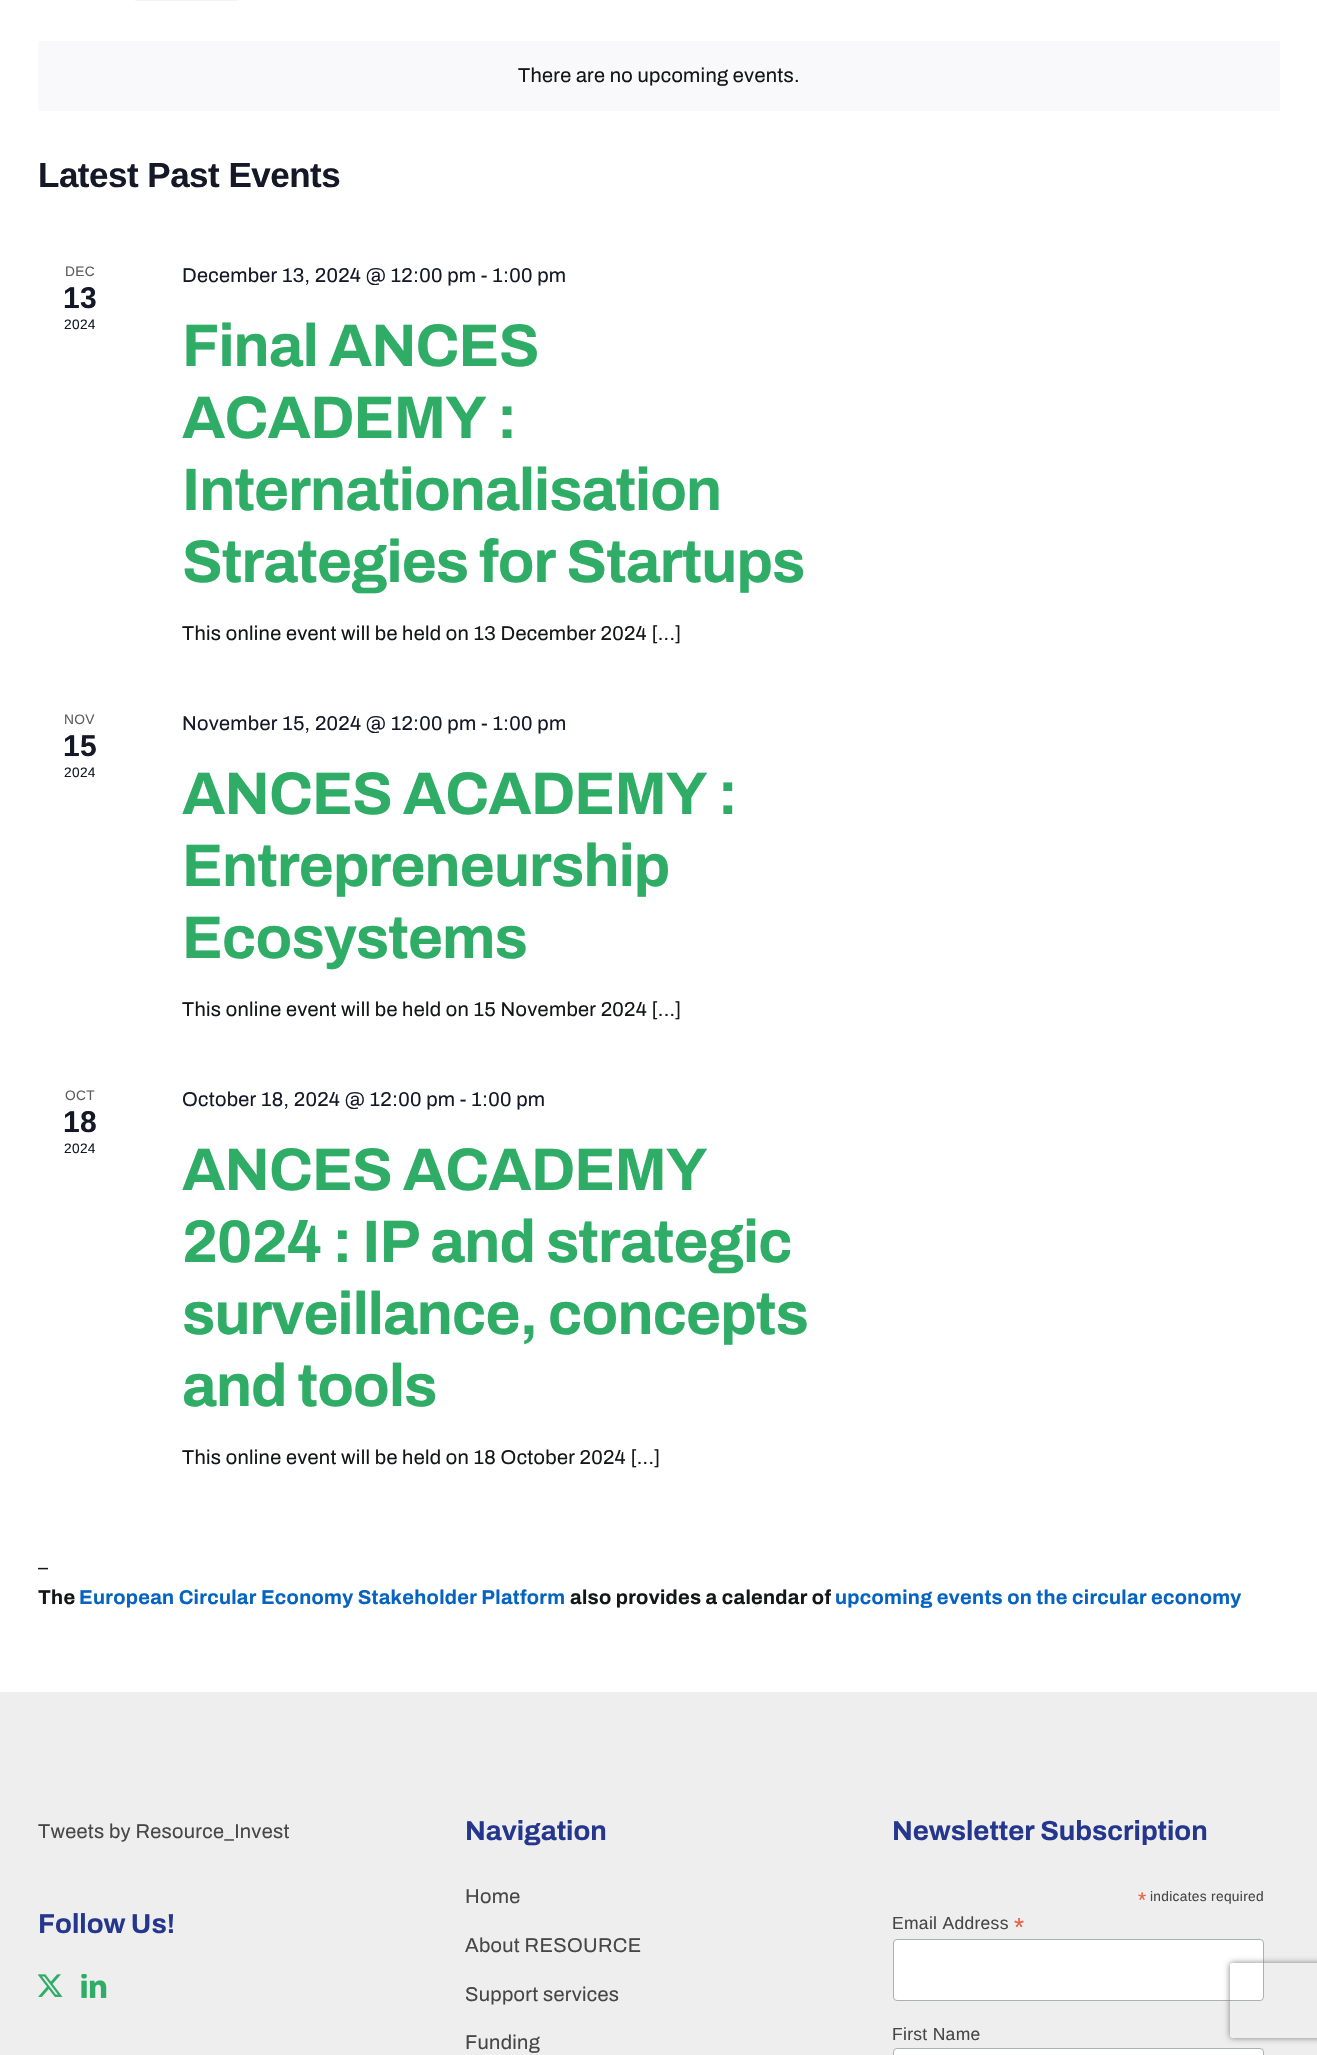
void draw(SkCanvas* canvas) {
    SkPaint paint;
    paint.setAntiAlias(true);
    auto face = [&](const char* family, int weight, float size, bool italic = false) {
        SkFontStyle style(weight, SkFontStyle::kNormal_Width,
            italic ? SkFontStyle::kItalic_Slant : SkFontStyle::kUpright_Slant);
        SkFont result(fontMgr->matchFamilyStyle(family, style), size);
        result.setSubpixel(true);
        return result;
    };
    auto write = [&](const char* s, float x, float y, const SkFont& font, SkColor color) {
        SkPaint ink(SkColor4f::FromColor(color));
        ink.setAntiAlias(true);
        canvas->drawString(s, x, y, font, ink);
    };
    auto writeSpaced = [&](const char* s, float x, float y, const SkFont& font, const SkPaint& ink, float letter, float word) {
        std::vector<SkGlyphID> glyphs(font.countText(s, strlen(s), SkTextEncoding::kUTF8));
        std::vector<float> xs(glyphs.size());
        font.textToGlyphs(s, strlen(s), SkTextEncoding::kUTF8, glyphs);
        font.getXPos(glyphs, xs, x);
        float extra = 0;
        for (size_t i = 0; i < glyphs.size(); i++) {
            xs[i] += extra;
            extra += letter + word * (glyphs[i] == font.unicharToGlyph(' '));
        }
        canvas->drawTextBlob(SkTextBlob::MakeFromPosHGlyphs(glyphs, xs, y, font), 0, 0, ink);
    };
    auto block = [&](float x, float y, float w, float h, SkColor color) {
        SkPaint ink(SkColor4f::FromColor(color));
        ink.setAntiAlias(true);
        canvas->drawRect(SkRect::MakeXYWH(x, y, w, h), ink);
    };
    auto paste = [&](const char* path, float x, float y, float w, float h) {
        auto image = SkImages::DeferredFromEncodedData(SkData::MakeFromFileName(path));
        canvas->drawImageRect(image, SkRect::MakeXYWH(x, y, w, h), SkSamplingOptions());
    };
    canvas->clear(SK_ColorWHITE);
    paint.setStyle(SkPaint::kStroke_Style);
    paint.setStrokeWidth(1);
    paint.setColor(SkColorSetRGB(242, 243, 245));
    canvas->drawRoundRect(SkRect::MakeXYWH(133.5f, -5.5f, 106, 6), 4.5f, 4.5f, paint);
    block(38, 41, 1242, 70, SkColorSetRGB(249, 249, 251));
    auto kFont1 = face("Archivo", 400, 20);
    paint.setStyle(SkPaint::kFill_Style);
    paint.setColor(SkColorSetRGB(20, 22, 23));
    writeSpaced("There are no upcoming events.", 518, 82, kFont1, paint, 0.3f, 0);
    auto kFont2 = face("Liberation Sans", 700, 35);
    paint.setColor(SkColorSetRGB(20, 24, 39));
    writeSpaced("Latest Past Events", 38, 187, kFont2, paint, -0.5f, 0);
    auto kFont3 = face("Liberation Sans", 400, 13.75f);
    paint.setColor(SkColorSetRGB(93, 93, 93));
    writeSpaced("DEC", 65, 276, kFont3, paint, 0.3f, 0);
    auto kFont4 = face("Liberation Sans", 700, 30);
    paint.setColor(SkColorSetRGB(20, 24, 39));
    writeSpaced("13", 63, 308, kFont4, paint, 0.3f, 0);
    writeSpaced("2024", 64, 329, kFont3, paint, 0.3f, 0);
    writeSpaced("December 13, 2024 @ 12:00 pm - 1:00 pm", 182, 282, kFont1, paint, 0.3f, 0);
    auto kFont5 = face("Archivo", 700, 60);
    paint.setColor(SkColorSetRGB(47, 172, 102));
    writeSpaced("Final ANCES", 182, 366, kFont5, paint, -0.9f, 0);
    writeSpaced("ACADEMY :", 182, 438, kFont5, paint, -0.9f, 0);
    writeSpaced("Internationalisation", 182, 510, kFont5, paint, -0.9f, 0);
    writeSpaced("Strategies for Startups", 182, 582, kFont5, paint, -0.9f, 0);
    paint.setColor(SkColorSetRGB(20, 22, 23));
    writeSpaced("This online event will be held on 13 December 2024 [...]", 182, 640, kFont1, paint, 0.3f, 0);
    paint.setColor(SkColorSetRGB(93, 93, 93));
    writeSpaced("NOV", 64, 724, kFont3, paint, 0.3f, 0);
    paint.setColor(SkColorSetRGB(20, 24, 39));
    writeSpaced("15", 63, 756, kFont4, paint, 0.3f, 0);
    writeSpaced("2024", 64, 777, kFont3, paint, 0.3f, 0);
    writeSpaced("November 15, 2024 @ 12:00 pm - 1:00 pm", 182, 730, kFont1, paint, 0.3f, 0);
    paint.setColor(SkColorSetRGB(47, 172, 102));
    writeSpaced("ANCES ACADEMY :", 182, 814, kFont5, paint, -0.9f, 0);
    writeSpaced("Entrepreneurship", 182, 886, kFont5, paint, -0.9f, 0);
    writeSpaced("Ecosystems", 182, 958, kFont5, paint, -0.9f, 0);
    paint.setColor(SkColorSetRGB(20, 22, 23));
    writeSpaced("This online event will be held on 15 November 2024 [...]", 182, 1016, kFont1, paint, 0.3f, 0);
    paint.setColor(SkColorSetRGB(93, 93, 93));
    writeSpaced("OCT", 65, 1100, kFont3, paint, 0.3f, 0);
    paint.setColor(SkColorSetRGB(20, 24, 39));
    writeSpaced("18", 63, 1132, kFont4, paint, 0.3f, 0);
    writeSpaced("2024", 64, 1153, kFont3, paint, 0.3f, 0);
    writeSpaced("October 18, 2024 @ 12:00 pm - 1:00 pm", 182, 1106, kFont1, paint, 0.3f, 0);
    paint.setColor(SkColorSetRGB(47, 172, 102));
    writeSpaced("ANCES ACADEMY", 182, 1190, kFont5, paint, -0.9f, 0);
    writeSpaced("2024 : IP and strategic", 182, 1262, kFont5, paint, -0.9f, 0);
    writeSpaced("surveillance, concepts", 182, 1334, kFont5, paint, -0.9f, 0);
    writeSpaced("and tools", 182, 1406, kFont5, paint, -0.9f, 0);
    paint.setColor(SkColorSetRGB(20, 22, 23));
    writeSpaced("This online event will be held on 18 October 2024 [...]", 182, 1464, kFont1, paint, 0.3f, 0);
    writeSpaced("–", 38, 1574, kFont1, paint, 0.3f, 0);
    auto kFont6 = face("Archivo", 700, 20);
    writeSpaced("The", 38, 1604, kFont6, paint, 0.3f, 0);
    paint.setColor(SkColorSetRGB(5, 99, 193));
    writeSpaced("European Circular Economy Stakeholder Platform", 79, 1604, kFont6, paint, 0.3f, 0);
    paint.setColor(SkColorSetRGB(20, 22, 23));
    writeSpaced("also provides a calendar of", 570, 1604, kFont6, paint, 0.3f, 0);
    paint.setColor(SkColorSetRGB(5, 99, 193));
    writeSpaced("upcoming events on the circular economy", 835, 1604, kFont6, paint, 0.3f, 0);
    block(0, 1692, 1317, 363, SkColorSetRGB(238, 238, 238));
    paint.setColor(SkColorSetRGB(70, 70, 70));
    writeSpaced("Tweets by Resource_Invest", 38, 1838, kFont1, paint, 0.3f, 0);
    auto kFont7 = face("Archivo", 700, 27.5f);
    write("Follow Us!", 38, 1933, kFont7, SkColorSetRGB(37, 55, 141));
    paste("pic1.png", 38, 1974, 25, 23);
    paste("pic2.png", 81, 1974, 26, 24);
    write("Navigation", 465, 1840, kFont7, SkColorSetRGB(37, 55, 141));
    writeSpaced("Home", 465, 1903, kFont1, paint, 0.3f, 0);
    writeSpaced("About RESOURCE", 465, 1952, kFont1, paint, 0.3f, 0);
    writeSpaced("Support services", 465, 2001, kFont1, paint, 0.3f, 0);
    writeSpaced("Funding", 465, 2049, kFont1, paint, 0.3f, 0);
    write("Newsletter Subscription", 892, 1840, kFont7, SkColorSetRGB(37, 55, 141));
    auto kFont8 = face("Liberation Sans", 400, 21);
    paint.setColor(SkColorSetRGB(232, 92, 65));
    writeSpaced("*", 1138, 1907, kFont8, paint, 0.3f, 0);
    paint.setColor(SkColorSetRGB(70, 70, 70));
    writeSpaced("indicates required", 1150, 1901, kFont3, paint, 0.3f, 0);
    auto kFont9 = face("Liberation Sans", 400, 17.5f);
    writeSpaced("Email Address", 892, 1929, kFont9, paint, 0.3f, 0);
    auto kFont10 = face("Liberation Sans", 400, 26);
    paint.setColor(SkColorSetRGB(232, 92, 65));
    writeSpaced("*", 1014, 1936, kFont10, paint, 0.3f, 0);
    paint.setColor(SK_ColorWHITE);
    canvas->drawRoundRect(SkRect::MakeXYWH(893.5f, 1939.5f, 370, 61), 3.5f, 3.5f, paint);
    paint.setStyle(SkPaint::kStroke_Style);
    paint.setColor(SkColorSetRGB(171, 176, 178));
    canvas->drawRoundRect(SkRect::MakeXYWH(893.5f, 1939.5f, 370, 61), 3.5f, 3.5f, paint);
    paint.setStyle(SkPaint::kFill_Style);
    paint.setColor(SkColorSetRGB(70, 70, 70));
    writeSpaced("First Name", 892, 2040, kFont9, paint, 0.3f, 0);
    paint.setColor(SK_ColorWHITE);
    canvas->drawRoundRect(SkRect::MakeXYWH(893.5f, 2048.5f, 370, 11), 3.5f, 3.5f, paint);
    paint.setStyle(SkPaint::kStroke_Style);
    paint.setColor(SkColorSetRGB(171, 176, 178));
    canvas->drawRoundRect(SkRect::MakeXYWH(893.5f, 2048.5f, 370, 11), 3.5f, 3.5f, paint);
    canvas->save();
    canvas->clipPath(SkPathBuilder(SkPathFillType::kEvenOdd).moveTo(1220, 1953).lineTo(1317, 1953).lineTo(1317, 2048).lineTo(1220, 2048).close().moveTo(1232.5f, 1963).lineTo(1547.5f, 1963).cubicTo(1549, 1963, 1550, 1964, 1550, 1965.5f).lineTo(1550, 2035.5f).cubicTo(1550, 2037, 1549, 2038, 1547.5f, 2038).lineTo(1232.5f, 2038).cubicTo(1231, 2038, 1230, 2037, 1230, 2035.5f).lineTo(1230, 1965.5f).cubicTo(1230, 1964, 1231, 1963, 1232.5f, 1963).close().detach(), true);
    paint.setStyle(SkPaint::kFill_Style);
    paint.setColor(SkColorSetRGB(128, 128, 128));
    paint.setMaskFilter(SkMaskFilter::MakeBlur(kNormal_SkBlurStyle, 3));
    canvas->drawRoundRect(SkRect::MakeXYWH(1230, 1963, 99, 75), 2.5f, 2.5f, paint);
    paint.setMaskFilter(nullptr);
    canvas->restore();
}
